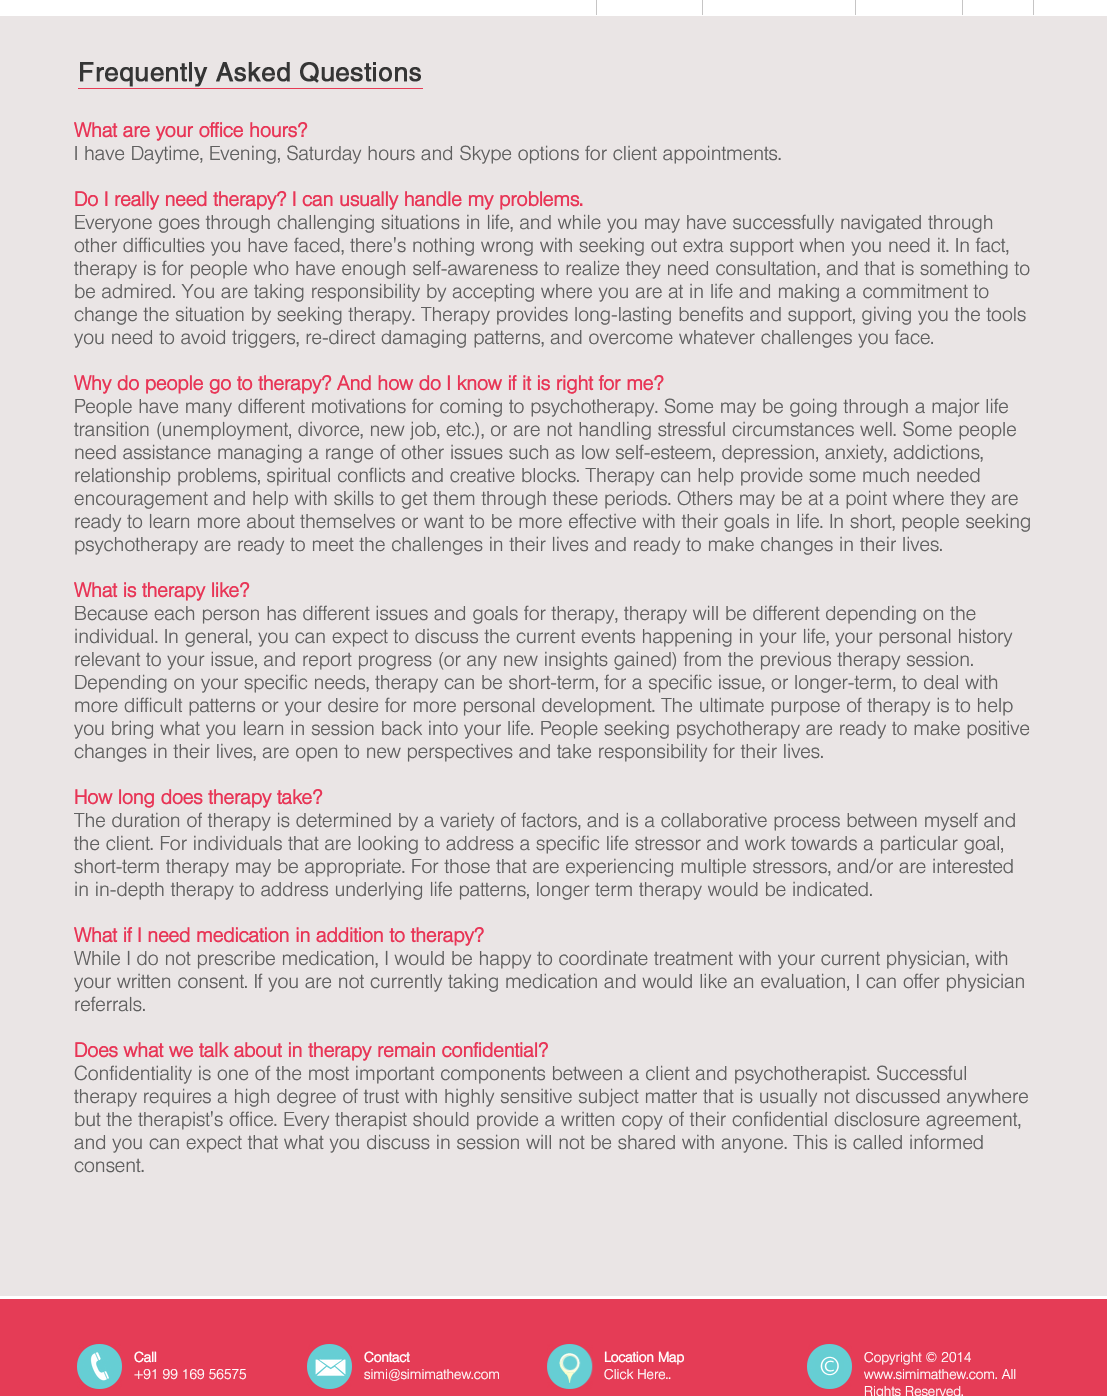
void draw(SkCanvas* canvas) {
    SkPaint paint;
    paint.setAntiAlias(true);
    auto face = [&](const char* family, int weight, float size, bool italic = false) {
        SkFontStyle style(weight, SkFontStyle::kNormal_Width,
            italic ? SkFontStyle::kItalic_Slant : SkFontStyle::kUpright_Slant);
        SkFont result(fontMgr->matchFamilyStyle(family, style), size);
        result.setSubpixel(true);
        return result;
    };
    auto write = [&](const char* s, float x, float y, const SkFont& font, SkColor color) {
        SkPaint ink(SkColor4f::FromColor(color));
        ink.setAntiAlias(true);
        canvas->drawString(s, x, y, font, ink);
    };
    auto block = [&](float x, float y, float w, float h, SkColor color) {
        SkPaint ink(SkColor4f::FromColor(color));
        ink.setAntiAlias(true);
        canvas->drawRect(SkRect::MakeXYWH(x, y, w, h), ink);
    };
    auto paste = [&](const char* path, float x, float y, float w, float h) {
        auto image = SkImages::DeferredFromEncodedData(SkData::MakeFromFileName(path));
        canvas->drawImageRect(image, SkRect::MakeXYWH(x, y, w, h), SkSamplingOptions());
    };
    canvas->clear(SkColorSetRGB(234, 229, 229));
    block(0, 0, 1107, 16, SK_ColorWHITE);
    block(596, 0, 1, 15, SkColorSetRGB(198, 197, 197));
    block(702, 0, 1, 15, SkColorSetRGB(198, 197, 197));
    block(855, 0, 1, 15, SkColorSetRGB(198, 197, 197));
    block(962, 0, 1, 15, SkColorSetRGB(198, 197, 197));
    block(1033, 0, 1, 15, SkColorSetRGB(198, 197, 197));
    paste("pic1.png", 78, 62, 345, 27);
    canvas->save();
    canvas->clipRect(SkRect::MakeXYWH(74, 16, 960, 1280));
    auto kFont1 = face("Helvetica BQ", 700, 20);
    write("What are your office hours?", 74, 137, kFont1, SkColorSetRGB(232, 53, 86));
    canvas->restore();
    auto kFont2 = face("Helvetica BQ", 300, 20);
    write("I have Daytime, Evening, Saturday hours and Skype options for client appointments.", 74, 160, kFont2, SkColorSetRGB(96, 96, 96));
    write("Do I really need therapy? I can usually handle my problems.", 74, 206, kFont1, SkColorSetRGB(232, 53, 86));
    write("Everyone goes through challenging situations in life, and while you may have successfully navigated through", 74, 229, kFont2, SkColorSetRGB(96, 96, 96));
    write("other difficulties you have faced, there's nothing wrong with seeking out extra support when you need it. In fact,", 74, 252, kFont2, SkColorSetRGB(96, 96, 96));
    write("therapy is for people who have enough self-awareness to realize they need consultation, and that is something to", 74, 275, kFont2, SkColorSetRGB(96, 96, 96));
    write("be admired. You are taking responsibility by accepting where you are at in life and making a commitment to", 74, 298, kFont2, SkColorSetRGB(96, 96, 96));
    write("change the situation by seeking therapy. Therapy provides long-lasting benefits and support, giving you the tools", 74, 321, kFont2, SkColorSetRGB(96, 96, 96));
    write("you need to avoid triggers, re-direct damaging patterns, and overcome whatever challenges you face.", 74, 344, kFont2, SkColorSetRGB(96, 96, 96));
    canvas->save();
    canvas->clipRect(SkRect::MakeXYWH(74, 16, 960, 1280));
    write("Why do people go to therapy? And how do I know if it is right for me?", 74, 390, kFont1, SkColorSetRGB(232, 53, 86));
    canvas->restore();
    write("People have many different motivations for coming to psychotherapy. Some may be going through a major life", 74, 413, kFont2, SkColorSetRGB(96, 96, 96));
    write("transition (unemployment, divorce, new job, etc.), or are not handling stressful circumstances well. Some people", 74, 436, kFont2, SkColorSetRGB(96, 96, 96));
    write("need assistance managing a range of other issues such as low self-esteem, depression, anxiety, addictions,", 74, 459, kFont2, SkColorSetRGB(96, 96, 96));
    write("relationship problems, spiritual conflicts and creative blocks. Therapy can help provide some much needed", 74, 482, kFont2, SkColorSetRGB(96, 96, 96));
    write("encouragement and help with skills to get them through these periods. Others may be at a point where they are", 74, 505, kFont2, SkColorSetRGB(96, 96, 96));
    write("ready to learn more about themselves or want to be more effective with their goals in life. In short, people seeking", 74, 528, kFont2, SkColorSetRGB(96, 96, 96));
    write("psychotherapy are ready to meet the challenges in their lives and ready to make changes in their lives.", 74, 551, kFont2, SkColorSetRGB(96, 96, 96));
    canvas->save();
    canvas->clipRect(SkRect::MakeXYWH(74, 16, 960, 1280));
    write("What is therapy like?", 74, 597, kFont1, SkColorSetRGB(232, 53, 86));
    canvas->restore();
    write("Because each person has different issues and goals for therapy, therapy will be different depending on the", 74, 620, kFont2, SkColorSetRGB(96, 96, 96));
    write("individual. In general, you can expect to discuss the current events happening in your life, your personal history", 74, 643, kFont2, SkColorSetRGB(96, 96, 96));
    write("relevant to your issue, and report progress (or any new insights gained) from the previous therapy session.", 74, 666, kFont2, SkColorSetRGB(96, 96, 96));
    write("Depending on your specific needs, therapy can be short-term, for a specific issue, or longer-term, to deal with", 74, 689, kFont2, SkColorSetRGB(96, 96, 96));
    write("more difficult patterns or your desire for more personal development. The ultimate purpose of therapy is to help", 74, 712, kFont2, SkColorSetRGB(96, 96, 96));
    write("you bring what you learn in session back into your life. People seeking psychotherapy are ready to make positive", 74, 735, kFont2, SkColorSetRGB(96, 96, 96));
    write("changes in their lives, are open to new perspectives and take responsibility for their lives.", 74, 758, kFont2, SkColorSetRGB(96, 96, 96));
    write("How long does therapy take?", 74, 804, kFont1, SkColorSetRGB(232, 53, 86));
    write("The duration of therapy is determined by a variety of factors, and is a collaborative process between myself and", 74, 827, kFont2, SkColorSetRGB(96, 96, 96));
    write("the client. For individuals that are looking to address a specific life stressor and work towards a particular goal,", 74, 850, kFont2, SkColorSetRGB(96, 96, 96));
    write("short-term therapy may be appropriate. For those that are experiencing multiple stressors, and/or are interested", 74, 873, kFont2, SkColorSetRGB(96, 96, 96));
    write("in in-depth therapy to address underlying life patterns, longer term therapy would be indicated.", 74, 896, kFont2, SkColorSetRGB(96, 96, 96));
    canvas->save();
    canvas->clipRect(SkRect::MakeXYWH(74, 16, 960, 1280));
    write("What if I need medication in addition to therapy?", 74, 942, kFont1, SkColorSetRGB(232, 53, 86));
    write("While I do not prescribe medication, I would be happy to coordinate treatment with your current physician, with", 74, 965, kFont2, SkColorSetRGB(96, 96, 96));
    canvas->restore();
    write("your written consent. If you are not currently taking medication and would like an evaluation, I can offer physician", 74, 988, kFont2, SkColorSetRGB(96, 96, 96));
    write("referrals.", 74, 1011, kFont2, SkColorSetRGB(96, 96, 96));
    write("Does what we talk about in therapy remain confidential?", 74, 1057, kFont1, SkColorSetRGB(232, 53, 86));
    write("Confidentiality is one of the most important components between a client and psychotherapist. Successful", 74, 1080, kFont2, SkColorSetRGB(96, 96, 96));
    write("therapy requires a high degree of trust with highly sensitive subject matter that is usually not discussed anywhere", 74, 1103, kFont2, SkColorSetRGB(96, 96, 96));
    write("but the therapist's office. Every therapist should provide a written copy of their confidential disclosure agreement,", 74, 1126, kFont2, SkColorSetRGB(96, 96, 96));
    write("and you can expect that what you discuss in session will not be shared with anyone. This is called informed", 74, 1149, kFont2, SkColorSetRGB(96, 96, 96));
    write("consent.", 74, 1172, kFont2, SkColorSetRGB(96, 96, 96));
    block(0, 1299, 1107, 97, SkColorSetRGB(229, 60, 86));
    block(0, 1296, 1107, 3, SK_ColorWHITE);
    paste("pic2.png", 77, 1344, 45, 45);
    auto kFont3 = face("Helvetica BQ", 700, 14);
    write("Call", 134, 1362, kFont3, SK_ColorWHITE);
    auto kFont4 = face("Helvetica BQ", 300, 14);
    write("+91 99 169 56575", 134, 1379, kFont4, SK_ColorWHITE);
    paste("pic3.png", 307, 1344, 45, 45);
    write("Contact", 364, 1362, kFont3, SK_ColorWHITE);
    write("simi@simimathew.com", 364, 1379, kFont4, SK_ColorWHITE);
    paste("pic4.png", 547, 1344, 46, 45);
    write("Location Map", 604, 1362, kFont3, SK_ColorWHITE);
    write("Click Here..", 604, 1379, kFont4, SK_ColorWHITE);
    paste("pic5.png", 807, 1344, 45, 45);
    write("Copyright © 2014", 864, 1362, kFont4, SK_ColorWHITE);
    write("www.simimathew.com. All", 864, 1379, kFont4, SK_ColorWHITE);
    write("Rights Reserved.", 864, 1396, kFont4, SK_ColorWHITE);
}
